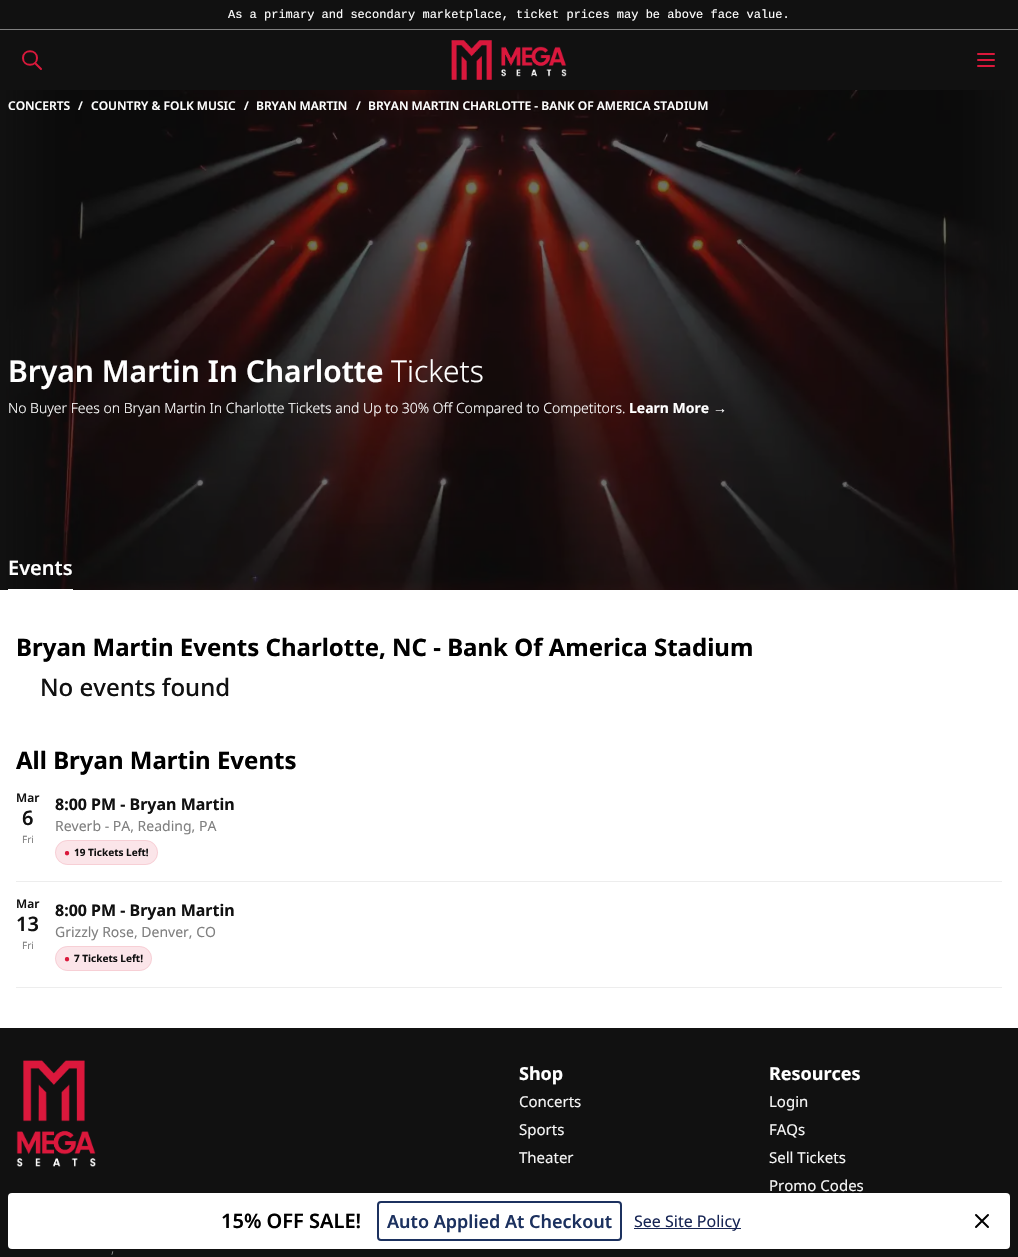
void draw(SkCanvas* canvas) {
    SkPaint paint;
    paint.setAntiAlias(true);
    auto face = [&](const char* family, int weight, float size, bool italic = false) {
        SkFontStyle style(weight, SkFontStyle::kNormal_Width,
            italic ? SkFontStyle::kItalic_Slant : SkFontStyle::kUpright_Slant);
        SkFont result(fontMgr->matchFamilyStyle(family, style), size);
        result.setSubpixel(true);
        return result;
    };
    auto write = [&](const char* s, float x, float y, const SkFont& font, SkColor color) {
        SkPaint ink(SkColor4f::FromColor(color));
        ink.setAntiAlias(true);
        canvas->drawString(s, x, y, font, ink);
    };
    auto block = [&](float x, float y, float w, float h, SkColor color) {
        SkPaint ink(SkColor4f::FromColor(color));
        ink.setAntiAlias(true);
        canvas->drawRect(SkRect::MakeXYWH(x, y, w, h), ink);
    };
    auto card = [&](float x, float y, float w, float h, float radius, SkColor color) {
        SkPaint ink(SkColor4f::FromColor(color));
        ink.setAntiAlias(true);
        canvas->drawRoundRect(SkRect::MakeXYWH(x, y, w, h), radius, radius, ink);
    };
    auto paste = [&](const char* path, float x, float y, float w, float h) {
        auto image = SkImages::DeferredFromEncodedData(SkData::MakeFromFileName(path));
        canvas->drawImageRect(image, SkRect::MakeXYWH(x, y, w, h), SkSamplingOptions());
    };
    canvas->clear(SK_ColorWHITE);
    block(0, 0, 1018, 29, SkColorSetRGB(17, 17, 17));
    block(0, 29, 1018, 1, SkColorSetRGB(128, 128, 128));
    auto kFont1 = face("Liberation Mono", 400, 12);
    write("As a primary and secondary marketplace, ticket prices may be above face value.", 228, 18, kFont1, SK_ColorWHITE);
    block(0, 30, 1018, 60, SkColorSetRGB(17, 17, 17));
    paint.setStyle(SkPaint::kStroke_Style);
    paint.setStrokeWidth(2);
    paint.setStrokeCap(SkPaint::kRound_Cap);
    paint.setStrokeJoin(SkPaint::kRound_Join);
    paint.setColor(SkColorSetRGB(218, 24, 59));
    canvas->drawPath(SkPathBuilder().moveTo(41, 69).lineTo(35, 63).moveTo(37, 58).cubicTo(37, 67, 23, 67, 23, 58).cubicTo(23, 49, 37, 49, 37, 58).close().detach(), paint);
    paste("pic1.png", 451, 40, 116, 40);
    canvas->drawPath(SkPathBuilder().moveTo(978, 54).lineTo(994, 54).moveTo(978, 60).lineTo(994, 60).moveTo(978, 66).lineTo(994, 66).detach(), paint);
    paste("pic2.png", 0, 90, 1018, 500);
    auto kFont2 = face("Noto Sans", 600, 12);
    write("CONCERTS", 8, 110, kFont2, SK_ColorWHITE);
    write("/", 78, 110, kFont2, SK_ColorWHITE);
    write("COUNTRY & FOLK MUSIC", 91, 110, kFont2, SK_ColorWHITE);
    write("/", 244, 110, kFont2, SK_ColorWHITE);
    write("BRYAN MARTIN", 256, 110, kFont2, SK_ColorWHITE);
    write("/", 356, 110, kFont2, SK_ColorWHITE);
    write("BRYAN MARTIN CHARLOTTE - BANK OF AMERICA STADIUM", 368, 110, kFont2, SK_ColorWHITE);
    auto kFont3 = face("Noto Sans", 600, 30);
    write("Bryan Martin In Charlotte", 8, 382, kFont3, SK_ColorWHITE);
    auto kFont4 = face("Noto Sans", 300, 30);
    write("Tickets", 391, 382, kFont4, SK_ColorWHITE);
    auto kFont5 = face("Noto Sans", 300, 14);
    write("No Buyer Fees on Bryan Martin In Charlotte Tickets and Up to 30% Off Compared to Competitors.", 8, 413, kFont5, SK_ColorWHITE);
    auto kFont6 = face("Noto Sans", 700, 14);
    write("Learn More", 629, 413, kFont6, SK_ColorWHITE);
    auto kFont7 = face("Liberation Sans", 700, 14);
    write("→", 713, 413, kFont7, SK_ColorWHITE);
    auto kFont8 = face("Noto Sans", 600, 20);
    write("Events", 8, 575, kFont8, SK_ColorWHITE);
    block(8, 589, 65, 1, SK_ColorWHITE);
    auto kFont9 = face("Noto Sans", 700, 24);
    write("Bryan Martin Events Charlotte, NC - Bank Of America Stadium", 16, 656, kFont9, SK_ColorBLACK);
    auto kFont10 = face("Noto Sans", 500, 24);
    write("No events found", 40, 696, kFont10, SkColorSetRGB(17, 17, 17));
    write("All Bryan Martin Events", 16, 769, kFont9, SK_ColorBLACK);
    block(16, 881, 986, 1, SkColorSetRGB(237, 237, 237));
    write("Mar", 16, 802, kFont2, SkColorSetRGB(17, 17, 17));
    write("6", 22, 825, kFont8, SkColorSetRGB(17, 17, 17));
    auto kFont11 = face("Noto Sans", 400, 10);
    write("Fri", 22, 843, kFont11, SkColorSetRGB(128, 128, 128));
    auto kFont12 = face("Noto Sans", 700, 16);
    write("8:00 PM - Bryan Martin", 55, 810, kFont12, SkColorSetRGB(17, 17, 17));
    auto kFont13 = face("Noto Sans", 400, 14);
    write("Reverb - PA, Reading, PA", 55, 831, kFont13, SkColorSetRGB(128, 128, 128));
    card(55, 840, 103, 25, 12.5f, SkColorSetRGB(251, 229, 233));
    paint.setStrokeWidth(1);
    paint.setStrokeCap(SkPaint::kButt_Cap);
    paint.setStrokeJoin(SkPaint::kMiter_Join);
    paint.setColor(SkColorSetARGB(28, 218, 24, 59));
    canvas->drawRoundRect(SkRect::MakeXYWH(55.5f, 840.5f, 102, 24), 12, 12, paint);
    auto kFont14 = face("Liberation Sans", 700, 10);
    write("●", 64, 856, kFont14, SkColorSetRGB(218, 24, 59));
    auto kFont15 = face("Noto Sans", 700, 10);
    write("19 Tickets Left!", 74, 856, kFont15, SkColorSetRGB(17, 17, 17));
    block(16, 987, 986, 1, SkColorSetRGB(237, 237, 237));
    write("Mar", 16, 908, kFont2, SkColorSetRGB(17, 17, 17));
    write("13", 16, 931, kFont8, SkColorSetRGB(17, 17, 17));
    write("Fri", 22, 949, kFont11, SkColorSetRGB(128, 128, 128));
    write("8:00 PM - Bryan Martin", 55, 916, kFont12, SkColorSetRGB(17, 17, 17));
    write("Grizzly Rose, Denver, CO", 55, 937, kFont13, SkColorSetRGB(128, 128, 128));
    card(55, 946, 97, 25, 12.5f, SkColorSetRGB(251, 229, 233));
    canvas->drawRoundRect(SkRect::MakeXYWH(55.5f, 946.5f, 96, 24), 12, 12, paint);
    write("●", 64, 962, kFont14, SkColorSetRGB(218, 24, 59));
    write("7 Tickets Left!", 74, 962, kFont15, SkColorSetRGB(17, 17, 17));
    block(0, 1028, 1018, 229, SkColorSetRGB(17, 17, 17));
    auto kFont16 = face("Noto Sans", 700, 18);
    write("Shop", 519, 1080, kFont16, SK_ColorWHITE);
    auto kFont17 = face("Noto Sans", 400, 15);
    write("Concerts", 519, 1107, kFont17, SkColorSetRGB(245, 245, 245));
    write("Sports", 519, 1135, kFont17, SkColorSetRGB(245, 245, 245));
    write("Theater", 519, 1163, kFont17, SkColorSetRGB(245, 245, 245));
    write("Resources", 769, 1080, kFont16, SK_ColorWHITE);
    write("Login", 769, 1107, kFont17, SkColorSetRGB(245, 245, 245));
    write("FAQs", 769, 1135, kFont17, SkColorSetRGB(245, 245, 245));
    write("Sell Tickets", 769, 1163, kFont17, SkColorSetRGB(245, 245, 245));
    write("Promo Codes", 769, 1191, kFont17, SkColorSetRGB(245, 245, 245));
    paste("pic3.png", 16, 1060, 80, 107);
    write(",", 111, 1253, kFont5, SkColorSetRGB(155, 155, 155));
    card(8, 1193, 1002, 56, 4, SK_ColorWHITE);
    write("15% OFF SALE!", 221, 1228, kFont8, SK_ColorBLACK);
    paint.setStrokeWidth(2);
    paint.setColor(SkColorSetRGB(28, 49, 95));
    canvas->drawRoundRect(SkRect::MakeXYWH(378, 1202, 243, 38), 3, 3, paint);
    auto kFont18 = face("Noto Sans", 600, 18);
    write("Auto Applied At Checkout", 387, 1228, kFont18, SkColorSetRGB(28, 49, 95));
    block(634, 1228, 107, 1, SkColorSetRGB(23, 37, 84));
    auto kFont19 = face("Noto Sans", 400, 16);
    write("See Site Policy", 634, 1227, kFont19, SkColorSetRGB(23, 37, 84));
    paint.setStrokeCap(SkPaint::kRound_Cap);
    paint.setStrokeJoin(SkPaint::kRound_Join);
    paint.setColor(SK_ColorBLACK);
    canvas->drawPath(SkPathBuilder().moveTo(976, 1227).lineTo(988, 1215).moveTo(976, 1215).lineTo(988, 1227).detach(), paint);
}
